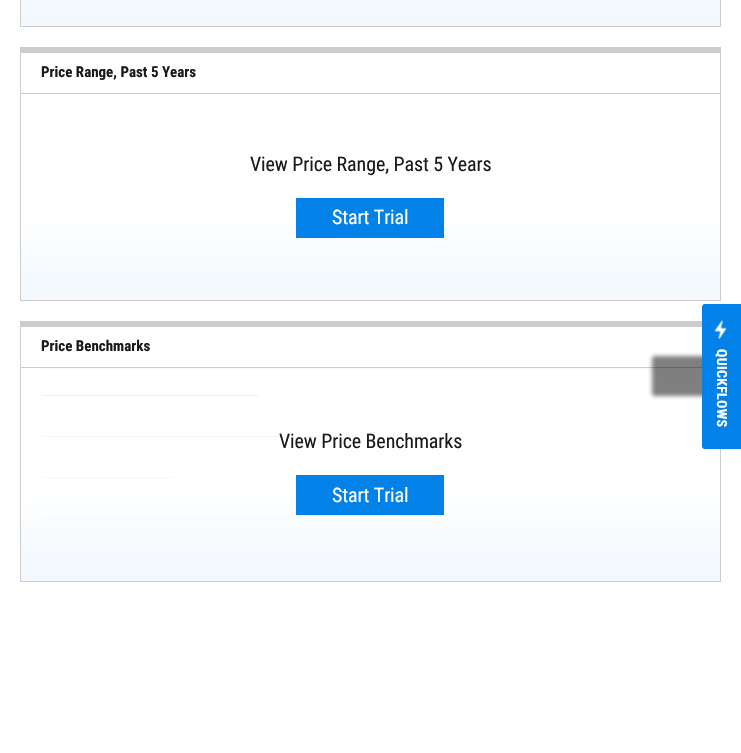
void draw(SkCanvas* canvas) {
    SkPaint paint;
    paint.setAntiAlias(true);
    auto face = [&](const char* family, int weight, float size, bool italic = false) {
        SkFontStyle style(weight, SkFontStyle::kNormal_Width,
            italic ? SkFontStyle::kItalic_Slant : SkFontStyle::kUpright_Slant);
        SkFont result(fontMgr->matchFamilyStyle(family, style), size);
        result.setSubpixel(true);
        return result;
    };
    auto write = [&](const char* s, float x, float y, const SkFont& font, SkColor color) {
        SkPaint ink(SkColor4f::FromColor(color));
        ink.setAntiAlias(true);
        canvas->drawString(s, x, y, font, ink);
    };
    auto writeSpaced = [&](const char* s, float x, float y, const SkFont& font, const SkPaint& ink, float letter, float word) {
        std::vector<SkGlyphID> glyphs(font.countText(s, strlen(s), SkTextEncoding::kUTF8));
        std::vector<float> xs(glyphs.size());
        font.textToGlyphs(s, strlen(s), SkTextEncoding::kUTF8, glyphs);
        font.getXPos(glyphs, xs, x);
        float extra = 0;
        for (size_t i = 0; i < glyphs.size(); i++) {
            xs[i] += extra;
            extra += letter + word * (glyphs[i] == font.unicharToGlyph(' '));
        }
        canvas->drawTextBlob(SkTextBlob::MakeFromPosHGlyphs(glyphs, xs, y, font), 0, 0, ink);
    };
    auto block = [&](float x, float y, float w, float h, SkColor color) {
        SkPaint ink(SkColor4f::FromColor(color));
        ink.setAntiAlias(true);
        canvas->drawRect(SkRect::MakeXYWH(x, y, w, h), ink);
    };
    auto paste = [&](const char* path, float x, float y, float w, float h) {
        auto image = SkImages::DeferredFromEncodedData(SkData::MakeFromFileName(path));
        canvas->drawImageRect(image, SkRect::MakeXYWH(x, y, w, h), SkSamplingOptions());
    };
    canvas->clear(SK_ColorWHITE);
    block(720, 0, 1, 27, SkColorSetRGB(204, 204, 204));
    block(20, 26, 701, 1, SkColorSetRGB(204, 204, 204));
    block(20, 0, 1, 27, SkColorSetRGB(204, 204, 204));
    {
        const SkColor colors[] = {SkColorSetRGB(242, 248, 253), SK_ColorWHITE, SK_ColorWHITE};
        const float stops[] = {0, 0.45f, 1};
        const SkPoint ends[] = {{371, 26}, {371, -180}};
        paint.setShader(SkGradientShader::MakeLinear(ends, colors, stops, 3, SkTileMode::kClamp));
        paint.setAlpha(255);
    }
    canvas->drawRect(SkRect::MakeXYWH(21, 0, 699, 26), paint);
    block(20, 47, 701, 6, SkColorSetRGB(204, 204, 204));
    block(720, 47, 1, 254, SkColorSetRGB(204, 204, 204));
    block(20, 300, 701, 1, SkColorSetRGB(204, 204, 204));
    block(20, 47, 1, 254, SkColorSetRGB(204, 204, 204));
    block(21, 93, 699, 1, SkColorSetRGB(204, 204, 204));
    auto kFont1 = face("Roboto Condensed", 700, 15);
    write("Price Range, Past 5 Years", 41, 77, kFont1, SkColorSetRGB(26, 26, 26));
    block(41, 173, 320, 1, SkColorSetRGB(230, 230, 230));
    block(381, 173, 319, 1, SkColorSetRGB(230, 230, 230));
    {
        const SkColor colors[] = {SkColorSetRGB(242, 248, 253), SkColorSetARGB(230, 255, 255, 255), SkColorSetARGB(204, 255, 255, 255)};
        const float stops[] = {0, 0.45f, 1};
        const SkPoint ends[] = {{371, 300}, {371, 94}};
        paint.setShader(SkGradientShader::MakeLinear(ends, colors, stops, 3, SkTileMode::kClamp));
        paint.setAlpha(255);
    }
    canvas->drawRect(SkRect::MakeXYWH(21, 173, 699, 127), paint);
    auto kFont2 = face("Roboto Condensed", 400, 20);
    paint.setShader(nullptr);
    paint.setColor(SkColorSetRGB(26, 26, 26));
    writeSpaced("View Price Range, Past 5 Years", 250, 171, kFont2, paint, -0.1f, 0);
    block(296, 198, 148, 40, SkColorSetRGB(2, 130, 232));
    paint.setColor(SK_ColorWHITE);
    writeSpaced("Start Trial", 332, 224, kFont2, paint, -0.1f, 0);
    block(20, 321, 682, 6, SkColorSetRGB(204, 204, 204));
    block(720, 449, 1, 133, SkColorSetRGB(204, 204, 204));
    block(20, 581, 701, 1, SkColorSetRGB(204, 204, 204));
    block(20, 321, 1, 261, SkColorSetRGB(204, 204, 204));
    block(21, 367, 681, 1, SkColorSetRGB(204, 204, 204));
    write("Price Benchmarks", 41, 351, kFont1, SkColorSetRGB(26, 26, 26));
    block(41, 574, 659, 1, SkColorSetRGB(230, 230, 230));
    block(41, 368, 660, 1, SkColorSetRGB(230, 230, 230));
    block(42, 395, 217, 1, SkColorSetRGB(179, 179, 179));
    block(41, 409, 660, 1, SkColorSetRGB(230, 230, 230));
    block(42, 436, 304, 1, SkColorSetRGB(179, 179, 179));
    block(41, 450, 660, 1, SkColorSetRGB(230, 230, 230));
    block(42, 477, 130, 1, SkColorSetRGB(179, 179, 179));
    block(41, 491, 660, 1, SkColorSetRGB(230, 230, 230));
    block(42, 518, 266, 1, SkColorSetRGB(179, 179, 179));
    block(41, 533, 660, 1, SkColorSetRGB(230, 230, 230));
    block(42, 560, 317, 1, SkColorSetRGB(179, 179, 179));
    {
        const SkColor colors[] = {SkColorSetRGB(242, 248, 253), SkColorSetARGB(230, 255, 255, 255), SkColorSetARGB(204, 255, 255, 255)};
        const float stops[] = {0, 0.45f, 1};
        const SkPoint ends[] = {{371, 581}, {371, 368}};
        paint.setShader(SkGradientShader::MakeLinear(ends, colors, stops, 3, SkTileMode::kClamp));
        paint.setAlpha(255);
    }
    canvas->drawRect(SkRect::MakeXYWH(21, 368, 699, 213), paint);
    paint.setShader(nullptr);
    paint.setColor(SkColorSetRGB(26, 26, 26));
    writeSpaced("View Price Benchmarks", 279, 448, kFont2, paint, -0.1f, 0);
    block(296, 475, 148, 40, SkColorSetRGB(2, 130, 232));
    paint.setColor(SK_ColorWHITE);
    writeSpaced("Start Trial", 332, 502, kFont2, paint, -0.1f, 0);
    paint.setColor(SkColorSetARGB(128, 0, 0, 0));
    paint.setMaskFilter(SkMaskFilter::MakeBlur(kNormal_SkBlurStyle, 2));
    canvas->drawRoundRect(SkRect::MakeXYWH(652, 356, 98, 40), 3, 3, paint);
    paint.setMaskFilter(nullptr);
    paint.setColor(SkColorSetRGB(2, 130, 232));
    canvas->drawPath(SkPathBuilder().moveTo(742, 304).lineTo(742, 449).lineTo(705, 449).cubicTo(703, 449, 702, 447, 702, 446).lineTo(702, 307).cubicTo(702, 306, 703, 304, 705, 304).close().detach(), paint);
    paint.setStyle(SkPaint::kStroke_Style);
    paint.setStrokeWidth(1);
    canvas->drawPath(SkPathBuilder().moveTo(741.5f, 304.5f).lineTo(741.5f, 448.5f).lineTo(705, 448.5f).cubicTo(703.5f, 448.5f, 702.5f, 447, 702.5f, 446).lineTo(702.5f, 307).cubicTo(702.5f, 306, 703.5f, 304.5f, 705, 304.5f).close().detach(), paint);
    paste("pic1.png", 714, 320, 13, 19);
    auto kFont3 = face("Roboto Condensed", 700, 14);
    paint.setStyle(SkPaint::kFill_Style);
    paint.setColor(SK_ColorWHITE);
    canvas->save();
    canvas->rotate(90, 717, 349);
    writeSpaced("QUICKFLOWS", 717, 349, kFont3, paint, 0.25f, 0);
    canvas->restore();
}
